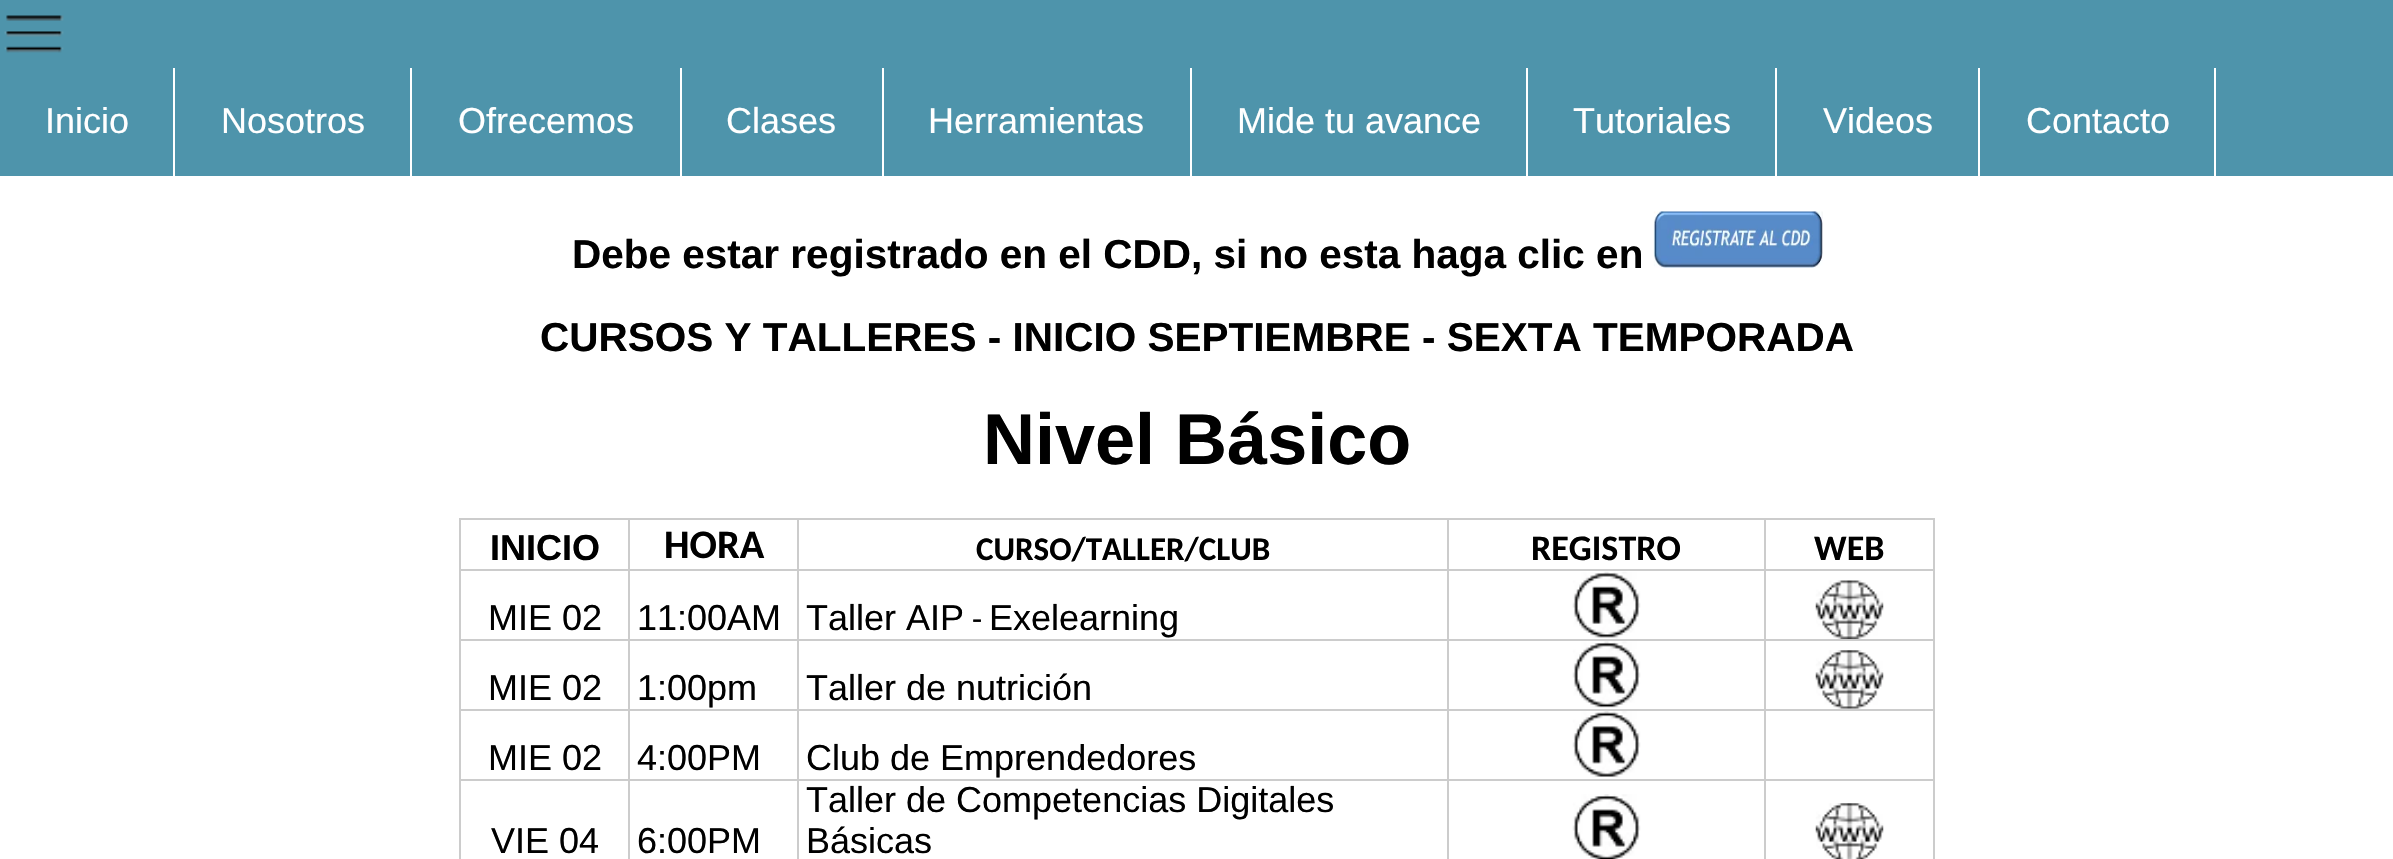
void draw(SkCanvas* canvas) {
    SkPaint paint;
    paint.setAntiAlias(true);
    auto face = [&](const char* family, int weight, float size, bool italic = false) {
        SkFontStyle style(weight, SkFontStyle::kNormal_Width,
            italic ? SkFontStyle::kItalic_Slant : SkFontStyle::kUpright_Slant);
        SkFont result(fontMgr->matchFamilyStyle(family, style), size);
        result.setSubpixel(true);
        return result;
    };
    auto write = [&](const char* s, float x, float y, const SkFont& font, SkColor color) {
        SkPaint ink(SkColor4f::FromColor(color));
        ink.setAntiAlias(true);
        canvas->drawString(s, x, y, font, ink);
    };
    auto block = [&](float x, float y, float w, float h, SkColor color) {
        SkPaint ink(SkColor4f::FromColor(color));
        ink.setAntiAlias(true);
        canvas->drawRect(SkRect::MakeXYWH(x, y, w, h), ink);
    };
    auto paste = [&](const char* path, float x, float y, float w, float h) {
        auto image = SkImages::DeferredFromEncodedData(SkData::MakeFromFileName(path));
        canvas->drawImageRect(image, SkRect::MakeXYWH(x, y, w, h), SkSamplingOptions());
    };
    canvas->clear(SK_ColorWHITE);
    block(0, 0, 2393, 176, SkColorSetRGB(78, 148, 171));
    paste("pic1.png", 4, 15, 60, 38);
    block(173, 68, 2, 108, SK_ColorWHITE);
    auto kFont1 = face("Liberation Sans", 400, 36);
    write("Inicio", 45, 133, kFont1, SK_ColorWHITE);
    block(410, 68, 2, 108, SK_ColorWHITE);
    write("Nosotros", 221, 133, kFont1, SK_ColorWHITE);
    block(680, 68, 2, 108, SK_ColorWHITE);
    write("Ofrecemos", 458, 133, kFont1, SK_ColorWHITE);
    block(882, 68, 2, 108, SK_ColorWHITE);
    write("Clases", 726, 133, kFont1, SK_ColorWHITE);
    block(1190, 68, 2, 108, SK_ColorWHITE);
    write("Herramientas", 928, 133, kFont1, SK_ColorWHITE);
    block(1526, 68, 2, 108, SK_ColorWHITE);
    write("Mide tu avance", 1237, 133, kFont1, SK_ColorWHITE);
    block(1775, 68, 2, 108, SK_ColorWHITE);
    write("Tutoriales", 1573, 133, kFont1, SK_ColorWHITE);
    block(1978, 68, 2, 108, SK_ColorWHITE);
    write("Videos", 1823, 133, kFont1, SK_ColorWHITE);
    block(2214, 68, 2, 108, SK_ColorWHITE);
    write("Contacto", 2026, 133, kFont1, SK_ColorWHITE);
    auto kFont2 = face("Liberation Sans", 700, 40.5f);
    write("Debe estar registrado en el CDD, si no esta haga clic en", 572, 268, kFont2, SK_ColorBLACK);
    paste("pic2.png", 1653, 211, 170, 57);
    write("CURSOS Y TALLERES - INICIO SEPTIEMBRE - SEXTA TEMPORADA", 540, 351, kFont2, SK_ColorBLACK);
    auto kFont3 = face("Liberation Sans", 700, 72);
    write("Nivel Básico", 983, 464, kFont3, SK_ColorBLACK);
    block(1764, 518, 171, 2, SkColorSetRGB(204, 204, 204));
    block(1764, 569, 171, 2, SkColorSetRGB(204, 204, 204));
    block(1764, 639, 171, 2, SkColorSetRGB(204, 204, 204));
    block(1764, 709, 171, 2, SkColorSetRGB(204, 204, 204));
    block(1764, 779, 171, 2, SkColorSetRGB(204, 204, 204));
    block(1764, 779, 2, 80, SkColorSetRGB(204, 204, 204));
    block(1447, 779, 319, 2, SkColorSetRGB(204, 204, 204));
    block(1764, 709, 2, 72, SkColorSetRGB(204, 204, 204));
    block(1447, 709, 319, 2, SkColorSetRGB(204, 204, 204));
    block(1764, 639, 2, 72, SkColorSetRGB(204, 204, 204));
    block(1447, 639, 319, 2, SkColorSetRGB(204, 204, 204));
    block(1764, 569, 2, 72, SkColorSetRGB(204, 204, 204));
    block(1447, 569, 319, 2, SkColorSetRGB(204, 204, 204));
    block(1764, 518, 2, 54, SkColorSetRGB(204, 204, 204));
    block(1447, 518, 319, 2, SkColorSetRGB(204, 204, 204));
    block(1447, 779, 2, 80, SkColorSetRGB(204, 204, 204));
    block(797, 779, 652, 2, SkColorSetRGB(204, 204, 204));
    block(1447, 709, 2, 72, SkColorSetRGB(204, 204, 204));
    block(797, 709, 652, 2, SkColorSetRGB(204, 204, 204));
    block(1447, 639, 2, 72, SkColorSetRGB(204, 204, 204));
    block(797, 639, 652, 2, SkColorSetRGB(204, 204, 204));
    block(1447, 569, 2, 72, SkColorSetRGB(204, 204, 204));
    block(797, 569, 652, 2, SkColorSetRGB(204, 204, 204));
    block(1447, 518, 2, 54, SkColorSetRGB(204, 204, 204));
    block(797, 518, 652, 2, SkColorSetRGB(204, 204, 204));
    block(797, 779, 2, 80, SkColorSetRGB(204, 204, 204));
    block(628, 779, 171, 2, SkColorSetRGB(204, 204, 204));
    block(797, 709, 2, 72, SkColorSetRGB(204, 204, 204));
    block(628, 709, 171, 2, SkColorSetRGB(204, 204, 204));
    block(797, 639, 2, 72, SkColorSetRGB(204, 204, 204));
    block(628, 639, 171, 2, SkColorSetRGB(204, 204, 204));
    block(797, 569, 2, 72, SkColorSetRGB(204, 204, 204));
    block(628, 569, 171, 2, SkColorSetRGB(204, 204, 204));
    block(797, 518, 2, 54, SkColorSetRGB(204, 204, 204));
    block(628, 518, 171, 2, SkColorSetRGB(204, 204, 204));
    block(628, 779, 2, 80, SkColorSetRGB(204, 204, 204));
    block(459, 779, 171, 2, SkColorSetRGB(204, 204, 204));
    block(628, 709, 2, 72, SkColorSetRGB(204, 204, 204));
    block(459, 709, 171, 2, SkColorSetRGB(204, 204, 204));
    block(628, 639, 2, 72, SkColorSetRGB(204, 204, 204));
    block(459, 639, 171, 2, SkColorSetRGB(204, 204, 204));
    block(628, 569, 2, 72, SkColorSetRGB(204, 204, 204));
    block(459, 569, 171, 2, SkColorSetRGB(204, 204, 204));
    block(628, 518, 2, 54, SkColorSetRGB(204, 204, 204));
    block(459, 518, 171, 2, SkColorSetRGB(204, 204, 204));
    block(459, 779, 2, 80, SkColorSetRGB(204, 204, 204));
    block(459, 709, 2, 72, SkColorSetRGB(204, 204, 204));
    block(459, 639, 2, 72, SkColorSetRGB(204, 204, 204));
    block(459, 569, 2, 72, SkColorSetRGB(204, 204, 204));
    block(459, 518, 2, 54, SkColorSetRGB(204, 204, 204));
    auto kFont4 = face("Liberation Sans", 700, 36);
    write("INICIO", 490, 560, kFont4, SK_ColorBLACK);
    auto kFont5 = face("Carlito", 700, 40.5f);
    write("HORA", 664, 558, kFont5, SK_ColorBLACK);
    auto kFont6 = face("Carlito", 700, 33);
    write("CURSO/TALLER/CLUB", 976, 560, kFont6, SK_ColorBLACK);
    auto kFont7 = face("Carlito", 700, 36);
    write("REGISTRO", 1531, 560, kFont7, SK_ColorBLACK);
    block(1933, 779, 2, 80, SkColorSetRGB(204, 204, 204));
    block(1933, 709, 2, 72, SkColorSetRGB(204, 204, 204));
    block(1933, 639, 2, 72, SkColorSetRGB(204, 204, 204));
    block(1933, 569, 2, 72, SkColorSetRGB(204, 204, 204));
    block(1933, 518, 2, 54, SkColorSetRGB(204, 204, 204));
    write("WEB", 1814, 560, kFont7, SK_ColorBLACK);
    write("MIE 02", 488, 630, kFont1, SK_ColorBLACK);
    write("11:00AM", 637, 630, kFont1, SK_ColorBLACK);
    write("Taller AIP", 806, 630, kFont1, SK_ColorBLACK);
    auto kFont8 = face("Carlito", 400, 33);
    write("-", 972, 630, kFont8, SK_ColorBLACK);
    write("Exelearning", 989, 630, kFont1, SK_ColorBLACK);
    paste("pic3.png", 1572, 571, 69, 68);
    paste("pic4.png", 1815, 580, 69, 59);
    write("MIE 02", 488, 700, kFont1, SK_ColorBLACK);
    write("1:00pm", 637, 700, kFont1, SK_ColorBLACK);
    write("Taller de nutrición", 806, 700, kFont1, SK_ColorBLACK);
    paste("pic5.png", 1572, 641, 69, 67);
    paste("pic6.png", 1815, 650, 69, 59);
    write("MIE 02", 488, 770, kFont1, SK_ColorBLACK);
    write("4:00PM", 637, 770, kFont1, SK_ColorBLACK);
    write("Club de Emprendedores", 806, 770, kFont1, SK_ColorBLACK);
    paste("pic7.png", 1572, 711, 69, 67);
    write("VIE 04", 491, 853, kFont1, SK_ColorBLACK);
    write("6:00PM", 637, 853, kFont1, SK_ColorBLACK);
    write("Taller de Competencias Digitales", 806, 812, kFont1, SK_ColorBLACK);
    write("Básicas", 806, 853, kFont1, SK_ColorBLACK);
    paste("pic8.png", 1572, 794, 69, 65);
    paste("pic9.png", 1815, 803, 69, 56);
}
